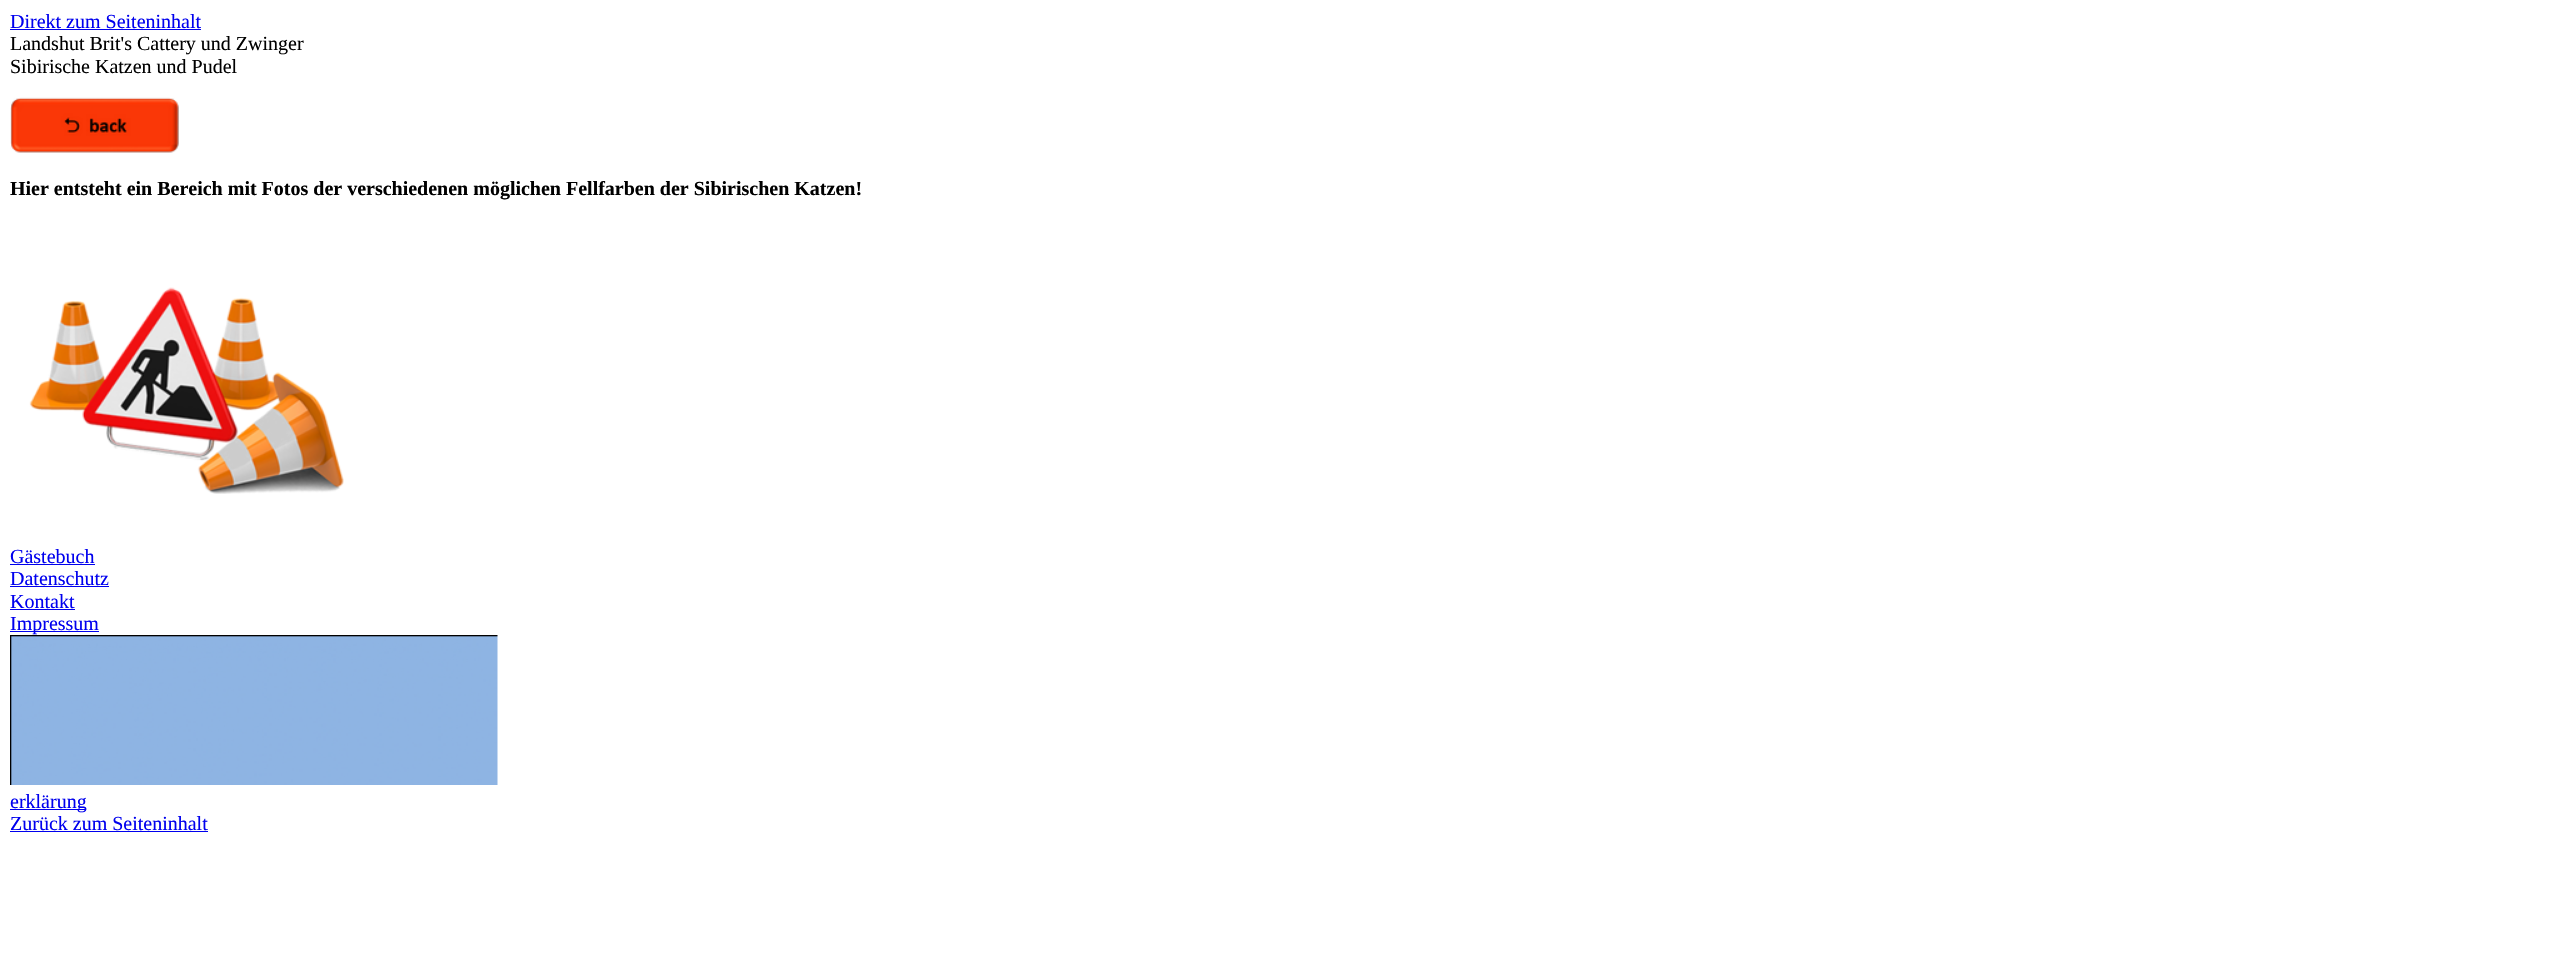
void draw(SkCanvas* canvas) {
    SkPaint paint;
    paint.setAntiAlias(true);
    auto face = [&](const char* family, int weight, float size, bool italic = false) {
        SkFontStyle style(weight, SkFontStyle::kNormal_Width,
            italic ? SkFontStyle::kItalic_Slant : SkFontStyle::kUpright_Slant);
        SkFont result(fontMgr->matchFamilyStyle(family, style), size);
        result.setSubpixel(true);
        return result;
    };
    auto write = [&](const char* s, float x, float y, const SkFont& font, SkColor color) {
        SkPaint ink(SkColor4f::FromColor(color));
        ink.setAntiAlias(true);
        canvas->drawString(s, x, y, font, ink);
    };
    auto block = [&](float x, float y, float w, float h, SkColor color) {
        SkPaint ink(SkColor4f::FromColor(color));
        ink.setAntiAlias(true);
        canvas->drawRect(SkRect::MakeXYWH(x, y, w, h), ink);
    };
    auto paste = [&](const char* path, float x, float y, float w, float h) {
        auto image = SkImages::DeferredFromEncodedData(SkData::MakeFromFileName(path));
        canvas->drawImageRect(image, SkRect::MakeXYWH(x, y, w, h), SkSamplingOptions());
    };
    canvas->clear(SK_ColorWHITE);
    auto kFont1 = face("Liberation Serif", 400, 20);
    write("Direkt zum Seiteninhalt", 10, 28, kFont1, SkColorSetRGB(0, 0, 238));
    block(10, 29, 191, 1, SkColorSetRGB(0, 0, 238));
    write("Landshut Brit's Cattery und Zwinger", 10, 50, kFont1, SK_ColorBLACK);
    write("Sibirische Katzen und Pudel", 10, 73, kFont1, SK_ColorBLACK);
    paste("pic1.png", 10, 97, 169, 56);
    auto kFont2 = face("Liberation Serif", 700, 20);
    write("Hier entsteht ein Bereich mit Fotos der verschiedenen möglichen Fellfarben der Sibirischen Katzen!", 10, 195, kFont2, SK_ColorBLACK);
    paste("pic2.png", 29, 287, 315, 207);
    write("Gästebuch", 10, 563, kFont1, SkColorSetRGB(0, 0, 238));
    block(10, 564, 85, 1, SkColorSetRGB(0, 0, 238));
    write("Datenschutz", 10, 585, kFont1, SkColorSetRGB(0, 0, 238));
    block(10, 586, 99, 1, SkColorSetRGB(0, 0, 238));
    write("Kontakt", 10, 608, kFont1, SkColorSetRGB(0, 0, 238));
    block(10, 609, 65, 1, SkColorSetRGB(0, 0, 238));
    block(10, 631, 89, 1, SkColorSetRGB(0, 0, 238));
    write("Impressum", 10, 630, kFont1, SkColorSetRGB(0, 0, 238));
    paste("pic3.png", 10, 635, 488, 150);
    block(10, 809, 76, 1, SkColorSetRGB(0, 0, 238));
    write("erklärung", 10, 808, kFont1, SkColorSetRGB(0, 0, 238));
    write("Zurück zum Seiteninhalt", 10, 830, kFont1, SkColorSetRGB(0, 0, 238));
    block(10, 831, 198, 1, SkColorSetRGB(0, 0, 238));
}
